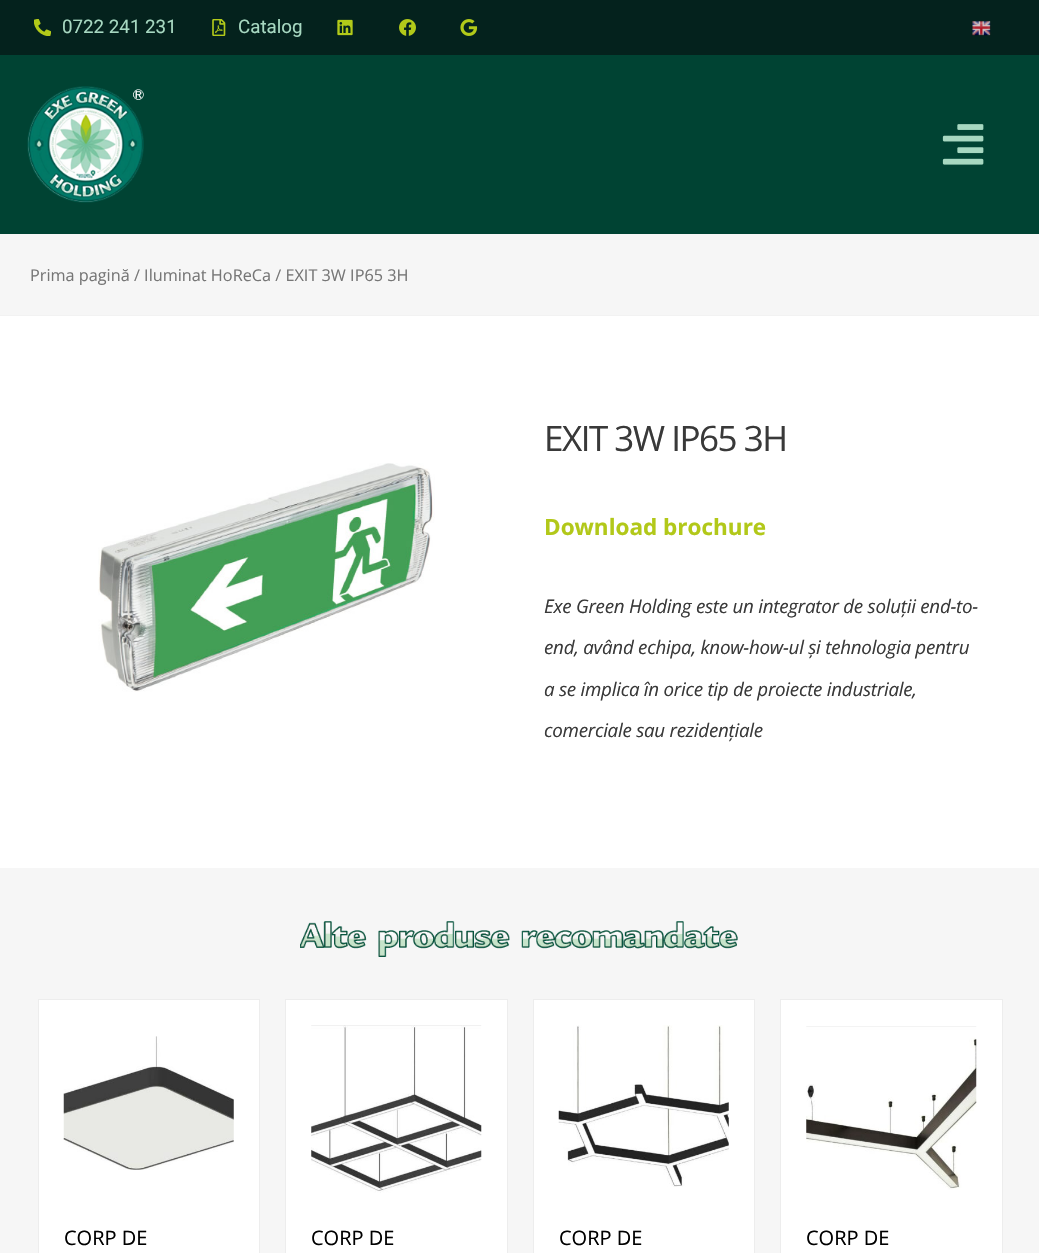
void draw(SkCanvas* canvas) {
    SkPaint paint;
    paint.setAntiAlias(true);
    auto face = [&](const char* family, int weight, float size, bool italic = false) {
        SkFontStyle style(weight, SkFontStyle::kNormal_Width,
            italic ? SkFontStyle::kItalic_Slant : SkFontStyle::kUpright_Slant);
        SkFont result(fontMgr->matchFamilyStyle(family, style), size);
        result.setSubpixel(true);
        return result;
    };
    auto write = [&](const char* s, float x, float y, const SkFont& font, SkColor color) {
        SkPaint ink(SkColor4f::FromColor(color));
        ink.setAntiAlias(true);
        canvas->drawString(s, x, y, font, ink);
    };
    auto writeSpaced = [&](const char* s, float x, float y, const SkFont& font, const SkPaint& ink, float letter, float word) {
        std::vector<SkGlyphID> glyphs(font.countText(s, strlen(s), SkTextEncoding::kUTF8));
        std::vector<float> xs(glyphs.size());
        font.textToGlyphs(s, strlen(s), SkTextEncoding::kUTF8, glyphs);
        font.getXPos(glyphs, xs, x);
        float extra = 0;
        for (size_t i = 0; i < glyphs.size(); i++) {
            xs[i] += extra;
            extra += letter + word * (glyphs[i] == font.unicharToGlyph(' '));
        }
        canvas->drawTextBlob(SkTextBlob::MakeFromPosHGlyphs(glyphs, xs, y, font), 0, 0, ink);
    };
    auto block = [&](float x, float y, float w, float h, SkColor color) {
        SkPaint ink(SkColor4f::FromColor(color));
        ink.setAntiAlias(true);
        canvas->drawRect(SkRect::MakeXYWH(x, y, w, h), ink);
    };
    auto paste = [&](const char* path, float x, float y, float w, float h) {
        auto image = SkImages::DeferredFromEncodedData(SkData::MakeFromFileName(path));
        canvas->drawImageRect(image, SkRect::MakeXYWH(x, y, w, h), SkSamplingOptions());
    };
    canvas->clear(SK_ColorWHITE);
    block(0, 0, 1039, 55, SkColorSetRGB(4, 34, 29));
    paste("pic1.png", 34, 19, 17, 17);
    auto kFont1 = face("Roboto", 400, 18.75f);
    write("0722 241 231", 62, 33, kFont1, SkColorSetRGB(167, 216, 193));
    paste("pic2.png", 212, 19, 14, 17);
    write("Catalog", 238, 33, kFont1, SkColorSetRGB(167, 216, 193));
    paste("pic3.png", 337, 19, 16, 17);
    paste("pic4.png", 399, 19, 17, 17);
    paste("pic5.png", 460, 19, 18, 17);
    paste("pic6.png", 972, 21, 19, 15);
    block(0, 55, 1039, 179, SkColorSetRGB(0, 67, 51));
    paste("pic7.png", 27, 86, 117, 117);
    paste("pic8.png", 942, 124, 42, 41);
    block(0, 234, 1039, 81, SkColorSetRGB(246, 246, 246));
    block(0, 315, 1039, 1, SkColorSetRGB(242, 242, 242));
    auto kFont2 = face("Open Sans", 400, 16.25f);
    write("Prima pagină / Iluminat HoReCa / EXIT 3W IP65 3H", 30, 281, kFont2, SkColorSetRGB(118, 118, 118));
    paste("pic9.png", 98, 463, 337, 229);
    auto kFont3 = face("Open Sans", 400, 35);
    paint.setColor(SkColorSetRGB(57, 57, 57));
    writeSpaced("EXIT 3W IP65 3H", 544, 451, kFont3, paint, -1.5f, 0);
    auto kFont4 = face("Open Sans", 700, 22.5f);
    write("Download brochure", 544, 535, kFont4, SkColorSetRGB(178, 200, 25));
    auto kFont5 = face("Open Sans", 400, 18.75f, true);
    writeSpaced("Exe Green Holding este un integrator de soluții end-to-", 544, 613, kFont5, paint, -0.25f, 0);
    writeSpaced("end, având echipa, know-how-ul și tehnologia pentru", 544, 654, kFont5, paint, -0.25f, 0);
    writeSpaced("a se implica în orice tip de proiecte industriale,", 544, 696, kFont5, paint, -0.25f, 0);
    writeSpaced("comerciale sau rezidențiale", 544, 737, kFont5, paint, -0.25f, 0);
    block(0, 868, 1039, 385, SkColorSetRGB(246, 246, 246));
    paste("pic10.png", 300, 921, 438, 36);
    paint.setColor(SK_ColorWHITE);
    canvas->drawRect(SkRect::MakeXYWH(38.5f, 999.5f, 221, 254), paint);
    paint.setStyle(SkPaint::kStroke_Style);
    paint.setStrokeWidth(1);
    paint.setColor(SkColorSetRGB(237, 237, 237));
    canvas->drawRect(SkRect::MakeXYWH(38.5f, 999.5f, 221, 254), paint);
    paste("pic11.png", 63, 1036, 171, 134);
    auto kFont6 = face("Open Sans", 400, 20);
    write("CORP DE", 64, 1245, kFont6, SK_ColorBLACK);
    paint.setStyle(SkPaint::kFill_Style);
    paint.setColor(SK_ColorWHITE);
    canvas->drawRect(SkRect::MakeXYWH(285.5f, 999.5f, 222, 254), paint);
    paint.setStyle(SkPaint::kStroke_Style);
    paint.setColor(SkColorSetRGB(237, 237, 237));
    canvas->drawRect(SkRect::MakeXYWH(285.5f, 999.5f, 222, 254), paint);
    paste("pic12.png", 311, 1025, 171, 168);
    write("CORP DE", 311, 1245, kFont6, SK_ColorBLACK);
    paint.setStyle(SkPaint::kFill_Style);
    paint.setColor(SK_ColorWHITE);
    canvas->drawRect(SkRect::MakeXYWH(533.5f, 999.5f, 221, 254), paint);
    paint.setStyle(SkPaint::kStroke_Style);
    paint.setColor(SkColorSetRGB(237, 237, 237));
    canvas->drawRect(SkRect::MakeXYWH(533.5f, 999.5f, 221, 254), paint);
    paste("pic13.png", 558, 1025, 171, 162);
    write("CORP DE", 559, 1245, kFont6, SK_ColorBLACK);
    paint.setStyle(SkPaint::kFill_Style);
    paint.setColor(SK_ColorWHITE);
    canvas->drawRect(SkRect::MakeXYWH(780.5f, 999.5f, 222, 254), paint);
    paint.setStyle(SkPaint::kStroke_Style);
    paint.setColor(SkColorSetRGB(237, 237, 237));
    canvas->drawRect(SkRect::MakeXYWH(780.5f, 999.5f, 222, 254), paint);
    paste("pic14.png", 806, 1026, 171, 164);
    write("CORP DE", 806, 1245, kFont6, SK_ColorBLACK);
}
